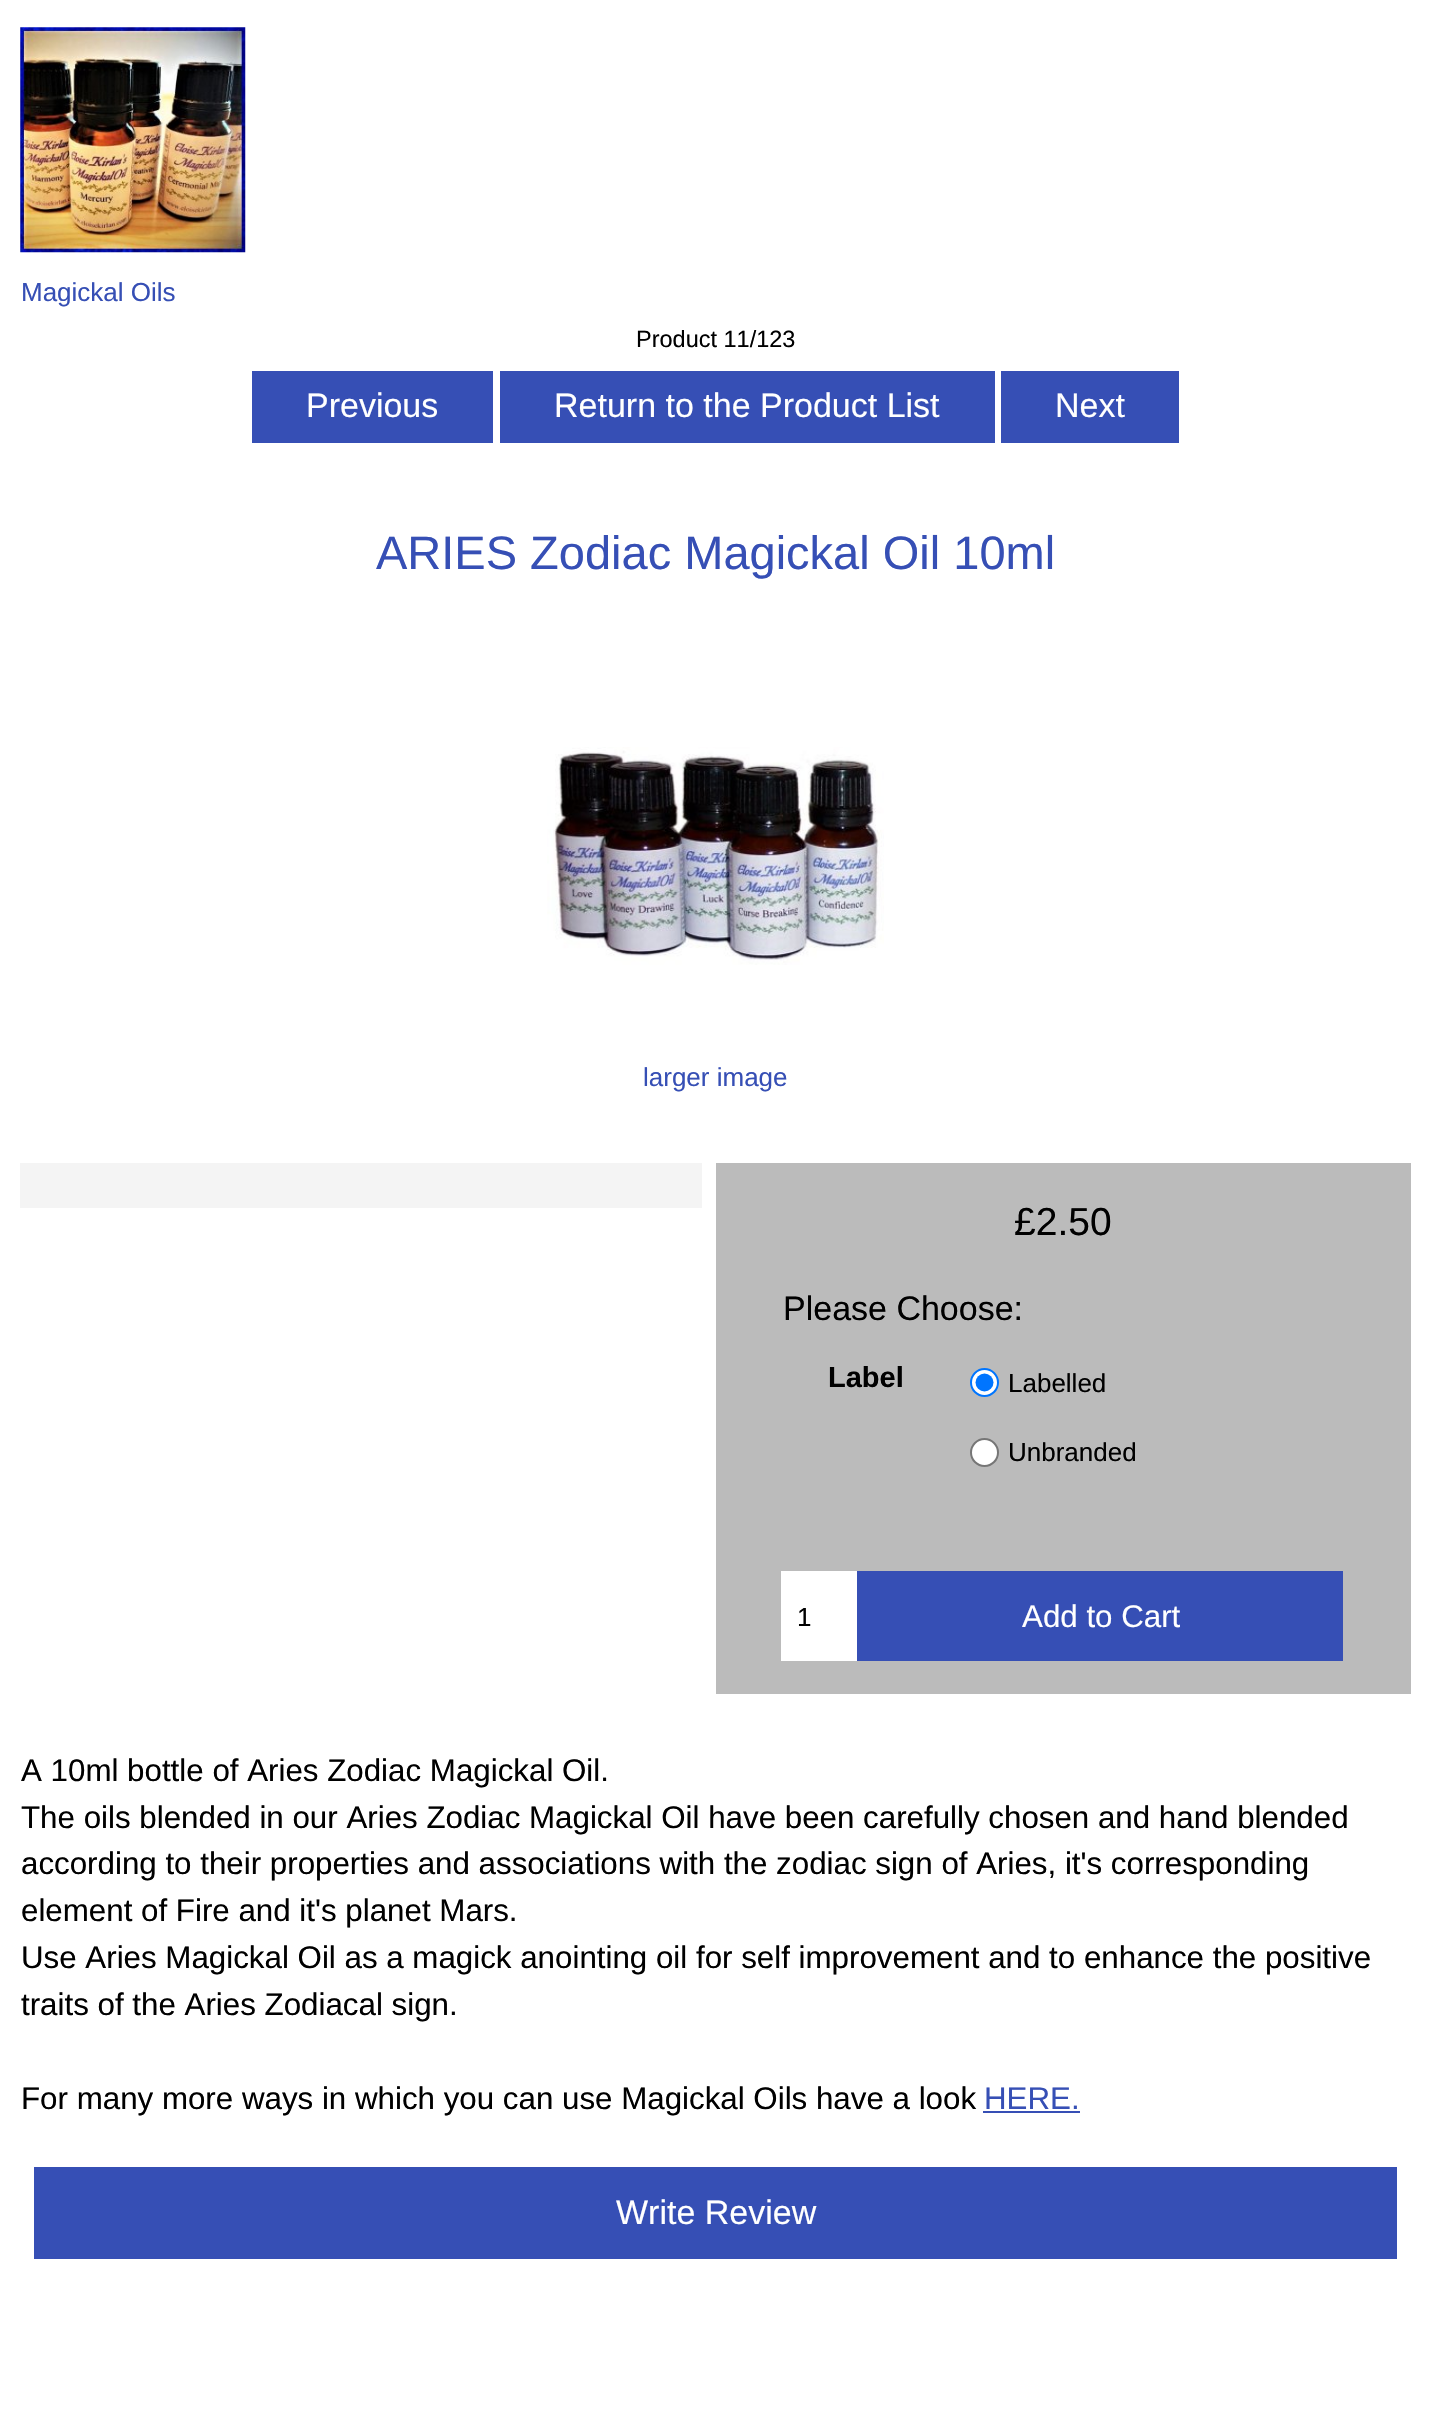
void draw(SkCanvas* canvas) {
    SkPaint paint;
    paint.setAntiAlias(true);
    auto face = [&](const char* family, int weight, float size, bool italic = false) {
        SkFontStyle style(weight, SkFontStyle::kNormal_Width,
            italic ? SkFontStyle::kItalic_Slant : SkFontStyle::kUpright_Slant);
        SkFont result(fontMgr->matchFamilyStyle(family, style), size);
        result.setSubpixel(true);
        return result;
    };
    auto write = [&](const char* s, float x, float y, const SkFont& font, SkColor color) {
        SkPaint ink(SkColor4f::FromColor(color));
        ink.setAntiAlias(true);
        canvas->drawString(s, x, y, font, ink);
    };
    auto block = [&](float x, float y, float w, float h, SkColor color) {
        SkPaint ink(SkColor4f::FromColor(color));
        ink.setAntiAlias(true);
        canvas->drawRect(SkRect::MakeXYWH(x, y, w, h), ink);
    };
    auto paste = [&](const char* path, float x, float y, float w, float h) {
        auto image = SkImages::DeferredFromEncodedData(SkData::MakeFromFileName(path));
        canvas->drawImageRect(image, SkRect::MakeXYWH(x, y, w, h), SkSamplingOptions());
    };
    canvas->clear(SK_ColorWHITE);
    paste("pic1.png", 20, 27, 226, 226);
    auto kFont1 = face("Liberation Sans", 400, 26);
    write("Magickal Oils", 21, 301, kFont1, SkColorSetRGB(54, 79, 181));
    auto kFont2 = face("Liberation Sans", 400, 23.5f);
    write("Product 11/123", 636, 347, kFont2, SK_ColorBLACK);
    block(252, 371, 241, 72, SkColorSetRGB(54, 79, 181));
    auto kFont3 = face("Liberation Sans", 400, 34);
    write("Previous", 306, 417, kFont3, SK_ColorWHITE);
    block(500, 371, 495, 72, SkColorSetRGB(54, 79, 181));
    write("Return to the Product List", 554, 417, kFont3, SK_ColorWHITE);
    block(1001, 371, 178, 72, SkColorSetRGB(54, 79, 181));
    write("Next", 1055, 417, kFont3, SK_ColorWHITE);
    auto kFont4 = face("Liberation Sans", 400, 47);
    write("ARIES Zodiac Magickal Oil 10ml", 376, 569, kFont4, SkColorSetRGB(54, 79, 181));
    paste("pic2.png", 547, 747, 337, 218);
    write("larger image", 643, 1086, kFont1, SkColorSetRGB(54, 79, 181));
    block(20, 1163, 682, 45, SkColorSetRGB(244, 244, 244));
    block(716, 1163, 695, 531, SkColorSetRGB(187, 187, 187));
    auto kFont5 = face("Liberation Sans", 400, 39);
    write("£2.50", 1014, 1235, kFont5, SK_ColorBLACK);
    write("Please Choose:", 783, 1320, kFont3, SK_ColorBLACK);
    auto kFont6 = face("Liberation Sans", 700, 29);
    write("Label", 828, 1387, kFont6, SK_ColorBLACK);
    paint.setColor(SK_ColorWHITE);
    canvas->drawCircle(984.5f, 1382.5f, 13.5f, paint);
    paint.setStyle(SkPaint::kStroke_Style);
    paint.setStrokeWidth(2);
    paint.setColor(SkColorSetRGB(0, 117, 255));
    canvas->drawCircle(984.5f, 1382.5f, 13.5f, paint);
    paint.setStyle(SkPaint::kFill_Style);
    canvas->drawCircle(984.5f, 1382.5f, 9, paint);
    write("Labelled", 1008, 1392, kFont1, SK_ColorBLACK);
    paint.setColor(SK_ColorWHITE);
    canvas->drawCircle(984.5f, 1452.5f, 13.5f, paint);
    paint.setStyle(SkPaint::kStroke_Style);
    paint.setColor(SkColorSetRGB(118, 118, 118));
    canvas->drawCircle(984.5f, 1452.5f, 13.5f, paint);
    write("Unbranded", 1008, 1461, kFont1, SK_ColorBLACK);
    block(781, 1571, 76, 90, SK_ColorWHITE);
    write("1", 797, 1626, kFont1, SK_ColorBLACK);
    block(857, 1571, 486, 90, SkColorSetRGB(54, 79, 181));
    auto kFont7 = face("Liberation Sans", 400, 31.3f);
    write("Add to Cart", 1022, 1627, kFont7, SK_ColorWHITE);
    write("A 10ml bottle of Aries Zodiac Magickal Oil.", 21, 1781, kFont7, SK_ColorBLACK);
    write("The oils blended in our Aries Zodiac Magickal Oil have been carefully chosen and hand blended", 21, 1828, kFont7, SK_ColorBLACK);
    write("according to their properties and associations with the zodiac sign of Aries, it's corresponding", 21, 1874, kFont7, SK_ColorBLACK);
    write("element of Fire and it's planet Mars.", 21, 1921, kFont7, SK_ColorBLACK);
    write("Use Aries Magickal Oil as a magick anointing oil for self improvement and to enhance the positive", 21, 1968, kFont7, SK_ColorBLACK);
    write("traits of the Aries Zodiacal sign.", 21, 2015, kFont7, SK_ColorBLACK);
    write("For many more ways in which you can use Magickal Oils have a look", 21, 2109, kFont7, SK_ColorBLACK);
    write("HERE.", 984, 2109, kFont7, SkColorSetRGB(54, 79, 181));
    block(983, 2111, 97, 2, SkColorSetRGB(54, 79, 181));
    block(34, 2167, 1363, 92, SkColorSetRGB(54, 79, 181));
    write("Write Review", 616, 2224, kFont3, SK_ColorWHITE);
}
